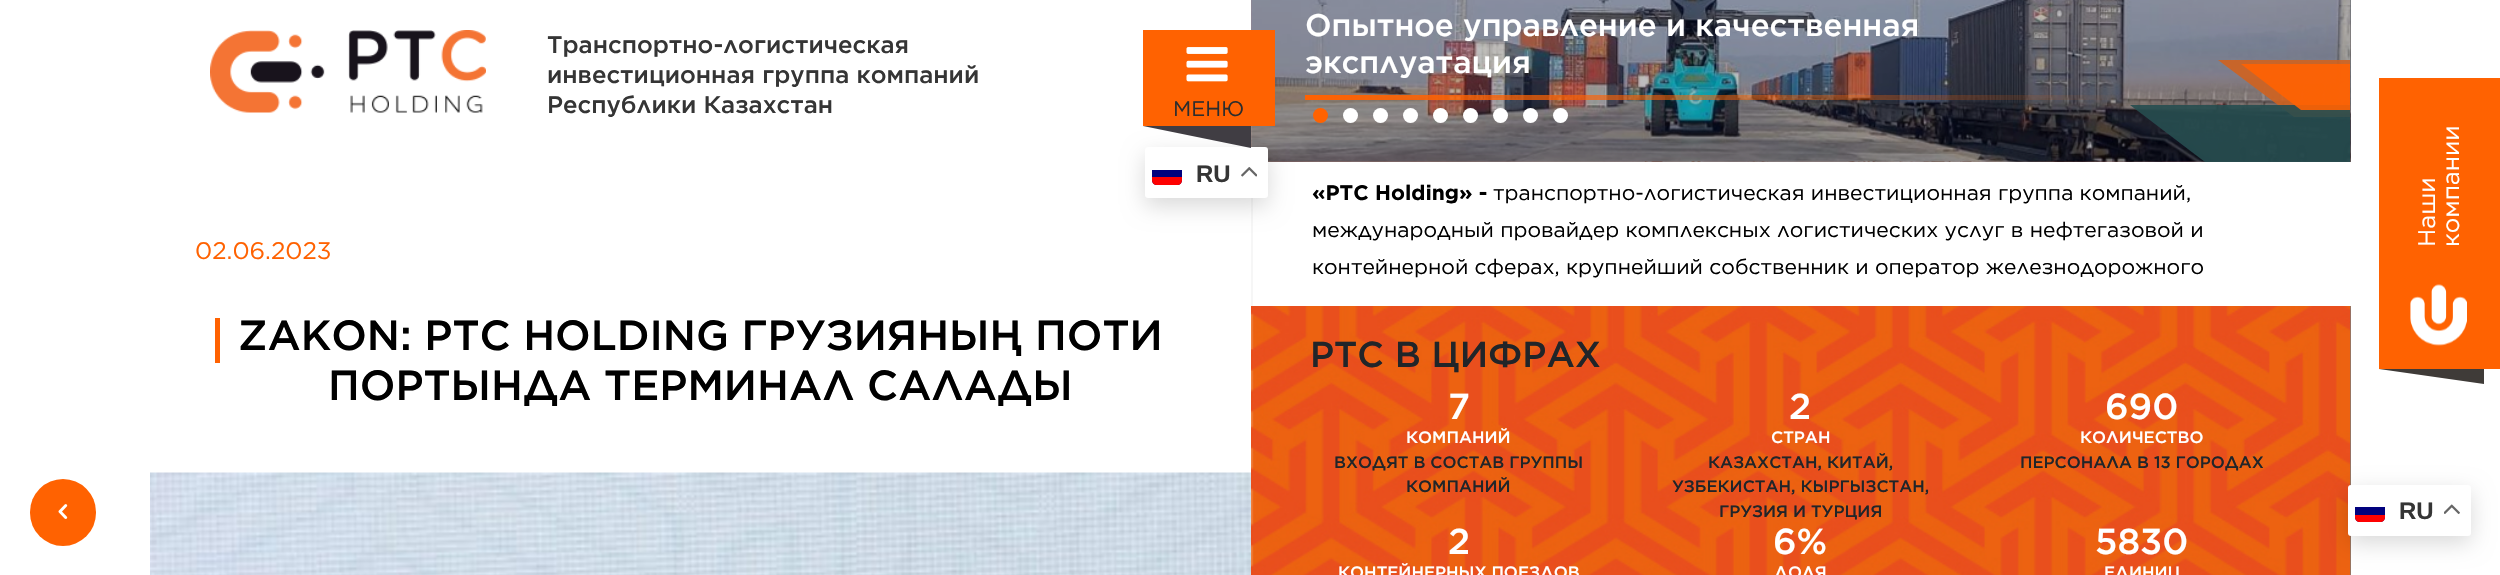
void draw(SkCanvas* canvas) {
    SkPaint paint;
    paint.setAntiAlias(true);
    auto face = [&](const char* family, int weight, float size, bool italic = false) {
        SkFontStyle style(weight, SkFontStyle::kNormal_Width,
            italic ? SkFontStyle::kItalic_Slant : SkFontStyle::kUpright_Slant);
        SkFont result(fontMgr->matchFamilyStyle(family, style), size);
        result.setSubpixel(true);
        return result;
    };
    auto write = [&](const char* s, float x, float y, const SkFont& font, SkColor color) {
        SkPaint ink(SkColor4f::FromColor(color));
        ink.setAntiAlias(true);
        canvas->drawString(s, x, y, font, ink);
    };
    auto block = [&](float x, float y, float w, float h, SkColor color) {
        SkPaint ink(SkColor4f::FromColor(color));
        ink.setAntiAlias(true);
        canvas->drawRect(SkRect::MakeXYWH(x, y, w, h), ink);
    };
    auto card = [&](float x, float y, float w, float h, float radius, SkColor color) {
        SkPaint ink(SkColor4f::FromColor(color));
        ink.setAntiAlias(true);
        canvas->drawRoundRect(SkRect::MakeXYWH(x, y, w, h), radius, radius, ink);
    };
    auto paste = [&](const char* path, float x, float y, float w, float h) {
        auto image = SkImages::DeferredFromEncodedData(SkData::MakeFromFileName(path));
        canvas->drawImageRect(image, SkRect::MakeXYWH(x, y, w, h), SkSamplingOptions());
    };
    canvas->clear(SK_ColorWHITE);
    paste("pic1.png", 210, 30, 276, 83);
    auto kFont1 = face("Gotham", 500, 24);
    write("Транспортно-логистическая", 547, 53, kFont1, SkColorSetRGB(53, 53, 53));
    write("инвестиционная группа компаний", 547, 83, kFont1, SkColorSetRGB(53, 53, 53));
    write("Республики Казахстан", 547, 113, kFont1, SkColorSetRGB(53, 53, 53));
    auto kFont2 = face("Gotham", 400, 24);
    write("02.06.2023", 195, 259, kFont2, SkColorSetRGB(255, 98, 1));
    block(215, 318, 5, 45, SkColorSetRGB(255, 98, 1));
    auto kFont3 = face("Gotham", 500, 42);
    write("ZAKON: PTC HOLDING ГРУЗИЯНЫҢ ПОТИ", 238, 350, kFont3, SK_ColorBLACK);
    write("ПОРТЫНДА ТЕРМИНАЛ САЛАДЫ", 328, 400, kFont3, SK_ColorBLACK);
    paste("pic2.png", 150, 472, 1101, 103);
    block(2350, 306, 1, 269, SkColorSetRGB(123, 123, 123));
    block(2350, 0, 1, 162, SkColorSetRGB(92, 92, 92));
    paste("pic3.png", 1251, 0, 1100, 162);
    paste("pic4.png", 1251, 0, 1100, 162);
    auto kFont4 = face("Gotham", 500, 31.25f);
    write("Опытное управление и качественная", 1305, 36, kFont4, SK_ColorWHITE);
    write("эксплуатация", 1305, 73, kFont4, SK_ColorWHITE);
    paint.setColor(SkColorSetRGB(255, 98, 1));
    canvas->drawCircle(1320.5f, 115.5f, 7.5f, paint);
    paint.setColor(SK_ColorWHITE);
    canvas->drawCircle(1350.5f, 115.5f, 7.5f, paint);
    canvas->drawCircle(1380.5f, 115.5f, 7.5f, paint);
    canvas->drawCircle(1410.5f, 115.5f, 7.5f, paint);
    canvas->drawCircle(1440.5f, 115.5f, 7.5f, paint);
    canvas->drawCircle(1470.5f, 115.5f, 7.5f, paint);
    canvas->drawCircle(1500.5f, 115.5f, 7.5f, paint);
    canvas->drawCircle(1530.5f, 115.5f, 7.5f, paint);
    canvas->drawCircle(1560.5f, 115.5f, 7.5f, paint);
    paint.setColor(SkColorSetARGB(230, 207, 98, 31));
    canvas->drawPath(SkPathBuilder().moveTo(2218, 60).lineTo(2350, 60).lineTo(2350, 117).lineTo(2294, 117).close().detach(), paint);
    paint.setColor(SkColorSetARGB(230, 38, 76, 79));
    canvas->drawPath(SkPathBuilder().moveTo(2130, 105).lineTo(2350, 105).lineTo(2350, 162).lineTo(2205, 162).close().detach(), paint);
    paint.setColor(SkColorSetARGB(230, 255, 98, 1));
    canvas->drawPath(SkPathBuilder().moveTo(2241, 64).lineTo(2350, 64).lineTo(2350, 110).lineTo(2301, 110).close().detach(), paint);
    block(1251, 198, 2, 108, SkColorSetRGB(246, 246, 246));
    auto kFont5 = face("Gotham", 700, 21);
    write("«PTC Holding» -", 1312, 200, kFont5, SK_ColorBLACK);
    auto kFont6 = face("Gotham", 400, 21);
    write("транспортно-логистическая инвестиционная группа компаний,", 1493, 200, kFont6, SK_ColorBLACK);
    write("международный провайдер комплексных логистических услуг в нефтегазовой и", 1312, 237, kFont6, SK_ColorBLACK);
    write("контейнерной сферах, крупнейший собственник и оператор железнодорожного", 1312, 274, kFont6, SK_ColorBLACK);
    paste("pic5.png", 1251, 306, 1100, 269);
    auto kFont7 = face("Gotham", 500, 36);
    write("PTC В ЦИФРАХ", 1310, 367, kFont7, SkColorSetRGB(33, 37, 41));
    write("7", 1448, 419, kFont7, SK_ColorWHITE);
    auto kFont8 = face("Gotham", 500, 16.5f);
    write("КОМПАНИЙ", 1406, 443, kFont8, SK_ColorWHITE);
    write("ВХОДЯТ В СОСТАВ ГРУППЫ", 1334, 468, kFont8, SkColorSetRGB(33, 37, 41));
    write("КОМПАНИЙ", 1406, 492, kFont8, SkColorSetRGB(33, 37, 41));
    write("2", 1789, 419, kFont7, SK_ColorWHITE);
    write("СТРАН", 1771, 443, kFont8, SK_ColorWHITE);
    write("КАЗАХСТАН, КИТАЙ,", 1708, 468, kFont8, SkColorSetRGB(33, 37, 41));
    write("УЗБЕКИСТАН, КЫРГЫЗСТАН,", 1672, 492, kFont8, SkColorSetRGB(33, 37, 41));
    write("ГРУЗИЯ И ТУРЦИЯ", 1719, 517, kFont8, SkColorSetRGB(33, 37, 41));
    write("690", 2105, 419, kFont7, SK_ColorWHITE);
    write("КОЛИЧЕСТВО", 2080, 443, kFont8, SK_ColorWHITE);
    write("ПЕРСОНАЛА В 13 ГОРОДАХ", 2020, 468, kFont8, SkColorSetRGB(33, 37, 41));
    write("2", 1448, 554, kFont7, SK_ColorWHITE);
    write("КОНТЕЙНЕРНЫХ ПОЕЗДОВ", 1338, 578, kFont8, SK_ColorWHITE);
    write("6%", 1773, 554, kFont7, SK_ColorWHITE);
    write("ДОЛЯ", 1774, 578, kFont8, SK_ColorWHITE);
    write("5830", 2095, 554, kFont7, SK_ColorWHITE);
    write("ЕДИНИЦ", 2104, 578, kFont8, SK_ColorWHITE);
    paint.setColor(SkColorSetARGB(38, 0, 0, 0));
    paint.setMaskFilter(SkMaskFilter::MakeBlur(kNormal_SkBlurStyle, 11));
    canvas->drawRoundRect(SkRect::MakeXYWH(1145, 155, 123, 51), 3, 3, paint);
    paint.setMaskFilter(nullptr);
    block(1143, 30, 132, 96, SkColorSetRGB(255, 98, 1));
    paste("pic6.png", 1186, 47, 42, 35);
    write("МЕНЮ", 1173, 116, kFont6, SkColorSetRGB(45, 45, 45));
    card(1145, 147, 123, 51, 3, SK_ColorWHITE);
    paint.setColor(SkColorSetRGB(64, 61, 67));
    canvas->drawPath(SkPathBuilder().moveTo(1251, 126).lineTo(1251, 148).lineTo(1143, 126).close().detach(), paint);
    paint.setColor(SkColorSetRGB(1, 1, 126));
    canvas->drawPath(SkPathBuilder().moveTo(1152, 170).lineTo(1182, 170).lineTo(1182, 180).cubicTo(1182, 183, 1180, 185, 1177, 185).lineTo(1157, 185).cubicTo(1154, 185, 1152, 183, 1152, 180).close().detach(), paint);
    paint.setColor(SkColorSetRGB(254, 1, 1));
    canvas->drawPath(SkPathBuilder().moveTo(1152, 177).lineTo(1182, 177).lineTo(1182, 180).cubicTo(1182, 183, 1180, 185, 1177, 185).lineTo(1157, 185).cubicTo(1154, 185, 1152, 183, 1152, 180).close().detach(), paint);
    auto kFont9 = face("Liberation Sans", 700, 24);
    write("RU", 1196, 182, kFont9, SkColorSetRGB(53, 53, 53));
    paste("pic7.png", 1241, 167, 16, 10);
    card(30, 479, 66, 67, 33, SkColorSetRGB(255, 98, 1));
    paste("pic8.png", 58, 504, 10, 15);
    block(2379, 78, 121, 291, SkColorSetRGB(255, 98, 1));
    canvas->save();
    canvas->rotate(-90, 2435, 247);
    write("Наши", 2435, 247, kFont2, SK_ColorWHITE);
    canvas->restore();
    canvas->save();
    canvas->rotate(-90, 2459, 247);
    write("компании", 2459, 247, kFont2, SK_ColorWHITE);
    canvas->restore();
    paste("pic9.png", 2410, 284, 57, 62);
    paint.setColor(SkColorSetRGB(63, 59, 56));
    canvas->drawPath(SkPathBuilder().moveTo(2379, 369).lineTo(2484, 369).lineTo(2484, 384).close().detach(), paint);
    paint.setColor(SkColorSetARGB(38, 0, 0, 0));
    paint.setMaskFilter(SkMaskFilter::MakeBlur(kNormal_SkBlurStyle, 11));
    canvas->drawRoundRect(SkRect::MakeXYWH(2348, 492, 123, 51), 3, 3, paint);
    paint.setMaskFilter(nullptr);
    card(2348, 485, 123, 51, 3, SK_ColorWHITE);
    paint.setColor(SkColorSetRGB(1, 1, 126));
    canvas->drawPath(SkPathBuilder().moveTo(2355, 507).lineTo(2385, 507).lineTo(2385, 517).cubicTo(2385, 520, 2383, 522, 2380, 522).lineTo(2360, 522).cubicTo(2357, 522, 2355, 520, 2355, 517).close().detach(), paint);
    paint.setColor(SkColorSetRGB(254, 1, 1));
    canvas->drawPath(SkPathBuilder().moveTo(2355, 515).lineTo(2385, 515).lineTo(2385, 517).cubicTo(2385, 520, 2383, 522, 2380, 522).lineTo(2360, 522).cubicTo(2357, 522, 2355, 520, 2355, 517).close().detach(), paint);
    write("RU", 2399, 519, kFont9, SkColorSetRGB(53, 53, 53));
    paste("pic10.png", 2444, 504, 16, 10);
}
